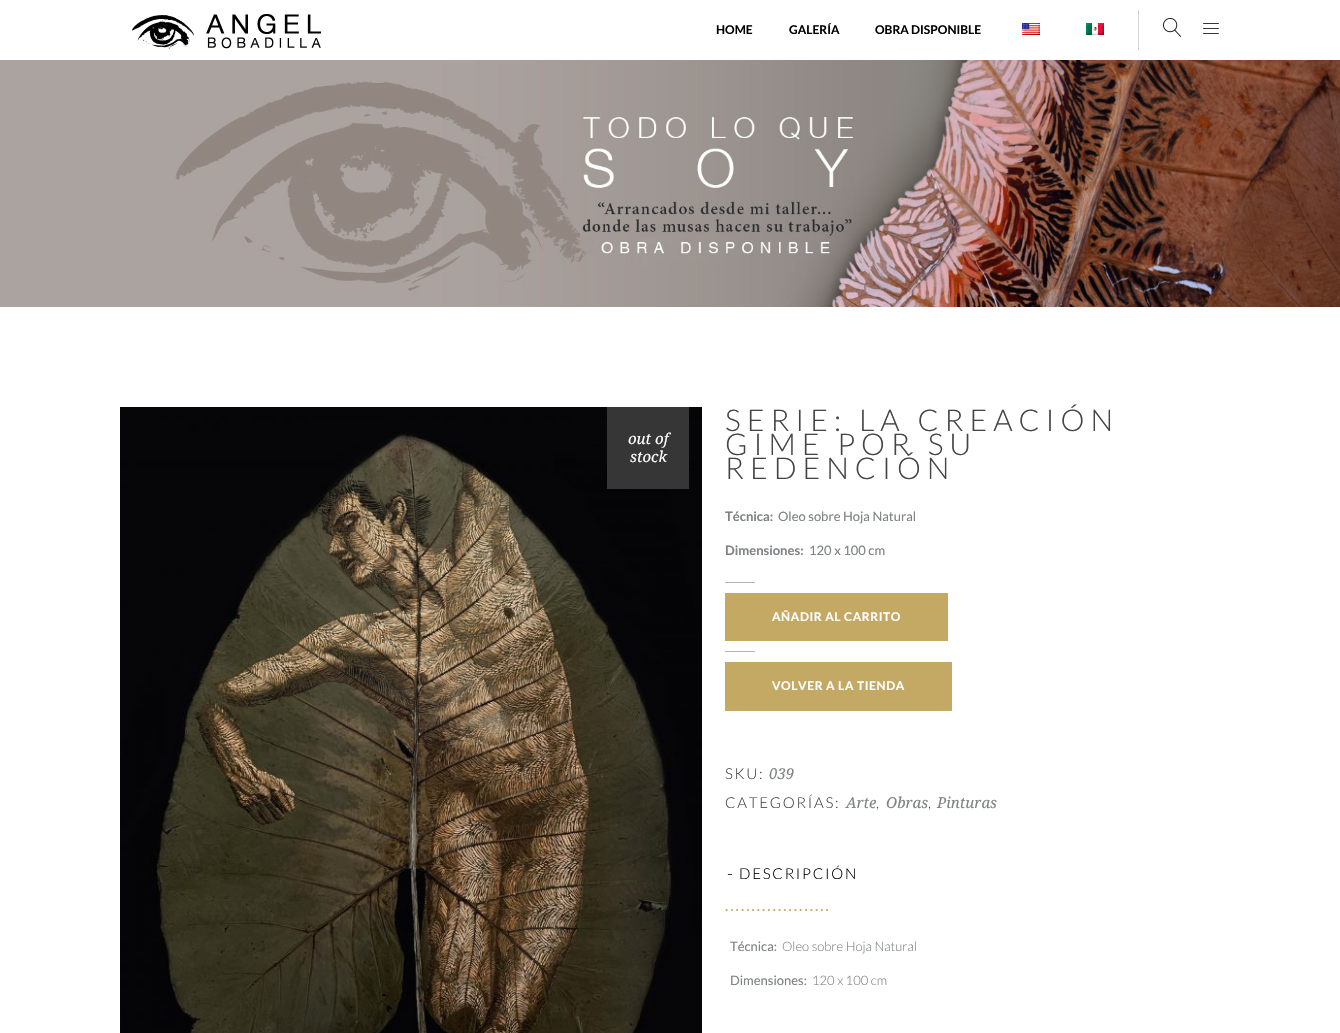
void draw(SkCanvas* canvas) {
    SkPaint paint;
    paint.setAntiAlias(true);
    auto face = [&](const char* family, int weight, float size, bool italic = false) {
        SkFontStyle style(weight, SkFontStyle::kNormal_Width,
            italic ? SkFontStyle::kItalic_Slant : SkFontStyle::kUpright_Slant);
        SkFont result(fontMgr->matchFamilyStyle(family, style), size);
        result.setSubpixel(true);
        return result;
    };
    auto write = [&](const char* s, float x, float y, const SkFont& font, SkColor color) {
        SkPaint ink(SkColor4f::FromColor(color));
        ink.setAntiAlias(true);
        canvas->drawString(s, x, y, font, ink);
    };
    auto writeSpaced = [&](const char* s, float x, float y, const SkFont& font, const SkPaint& ink, float letter, float word) {
        std::vector<SkGlyphID> glyphs(font.countText(s, strlen(s), SkTextEncoding::kUTF8));
        std::vector<float> xs(glyphs.size());
        font.textToGlyphs(s, strlen(s), SkTextEncoding::kUTF8, glyphs);
        font.getXPos(glyphs, xs, x);
        float extra = 0;
        for (size_t i = 0; i < glyphs.size(); i++) {
            xs[i] += extra;
            extra += letter + word * (glyphs[i] == font.unicharToGlyph(' '));
        }
        canvas->drawTextBlob(SkTextBlob::MakeFromPosHGlyphs(glyphs, xs, y, font), 0, 0, ink);
    };
    auto block = [&](float x, float y, float w, float h, SkColor color) {
        SkPaint ink(SkColor4f::FromColor(color));
        ink.setAntiAlias(true);
        canvas->drawRect(SkRect::MakeXYWH(x, y, w, h), ink);
    };
    auto paste = [&](const char* path, float x, float y, float w, float h) {
        auto image = SkImages::DeferredFromEncodedData(SkData::MakeFromFileName(path));
        canvas->drawImageRect(image, SkRect::MakeXYWH(x, y, w, h), SkSamplingOptions());
    };
    canvas->clear(SK_ColorWHITE);
    paste("pic1.png", 132, 14, 190, 35);
    auto kFont1 = face("Lato", 700, 12);
    write("HOME", 716, 34, kFont1, SK_ColorBLACK);
    write("GALERÍA", 789, 34, kFont1, SK_ColorBLACK);
    write("OBRA DISPONIBLE", 875, 34, kFont1, SK_ColorBLACK);
    paste("pic2.png", 1022, 23, 18, 12);
    paste("pic3.png", 1086, 23, 18, 12);
    block(1138, 10, 1, 40, SkColorSetRGB(212, 212, 211));
    paste("pic4.png", 1163, 17, 18, 20);
    paste("pic5.png", 1203, 23, 16, 11);
    paste("pic6.png", 0, 60, 1340, 247);
    paste("pic7.png", 120, 407, 582, 626);
    block(607, 407, 82, 82, SkColorSetRGB(54, 54, 54));
    auto kFont2 = face("Droid Serif", 400, 15, true);
    write("out of", 628, 444, kFont2, SK_ColorWHITE);
    write("stock", 630, 462, kFont2, SK_ColorWHITE);
    auto kFont3 = face("Lato", 300, 30);
    paint.setColor(SkColorSetRGB(68, 68, 68));
    writeSpaced("SERIE: LA CREACIÓN", 725, 431, kFont3, paint, 6, 0);
    writeSpaced("GIME POR SU", 725, 455, kFont3, paint, 6, 0);
    writeSpaced("REDENCIÓN", 725, 479, kFont3, paint, 6, 0);
    auto kFont4 = face("Lato", 700, 13);
    write("Técnica:", 725, 521, kFont4, SkColorSetRGB(128, 130, 133));
    auto kFont5 = face("Lato", 400, 13);
    write("Oleo sobre Hoja Natural", 778, 521, kFont5, SkColorSetRGB(128, 130, 133));
    write("Dimensiones:", 725, 555, kFont4, SkColorSetRGB(128, 130, 133));
    write("120 x 100 cm", 809, 555, kFont5, SkColorSetRGB(128, 130, 133));
    block(725, 582, 30, 1, SkColorSetRGB(178, 178, 178));
    block(725, 593, 223, 48, SkColorSetRGB(196, 169, 101));
    paint.setColor(SK_ColorWHITE);
    writeSpaced("AÑADIR AL CARRITO", 772, 621, kFont1, paint, 0.6f, 0);
    block(725, 651, 30, 1, SkColorSetRGB(178, 178, 178));
    block(725, 662, 227, 49, SkColorSetRGB(196, 169, 101));
    writeSpaced("VOLVER A LA TIENDA", 772, 690, kFont1, paint, 0.6f, 0);
    auto kFont6 = face("Lato", 300, 15);
    paint.setColor(SkColorSetRGB(68, 68, 68));
    writeSpaced("SKU:", 725, 779, kFont6, paint, 1.75f, 0);
    write("039", 769, 779, kFont2, SkColorSetRGB(128, 130, 133));
    writeSpaced("CATEGORÍAS:", 725, 808, kFont6, paint, 1.75f, 0);
    write("Arte", 846, 808, kFont2, SkColorSetRGB(128, 130, 133));
    writeSpaced(",", 876, 808, kFont6, paint, 1.75f, 0);
    write("Obras", 886, 808, kFont2, SkColorSetRGB(128, 130, 133));
    writeSpaced(",", 928, 808, kFont6, paint, 1.75f, 0);
    write("Pinturas", 937, 808, kFont2, SkColorSetRGB(128, 130, 133));
    auto kFont7 = face("Lato", 300, 18);
    paint.setColor(SK_ColorBLACK);
    writeSpaced("-", 727, 880, kFont7, paint, 1, 0);
    writeSpaced("DESCRIPCIÓN", 739, 879, kFont6, paint, 1.75f, 0);
    paint.setColor(SkColorSetRGB(196, 169, 101));
    writeSpaced("....................", 725, 911, kFont2, paint, 1, 0);
    write("Técnica:", 730, 951, kFont5, SkColorSetRGB(128, 130, 133));
    auto kFont8 = face("Lato", 300, 13);
    write("Oleo sobre Hoja Natural", 782, 951, kFont8, SkColorSetRGB(128, 130, 133));
    write("Dimensiones:", 730, 985, kFont5, SkColorSetRGB(128, 130, 133));
    write("120 x 100 cm", 812, 985, kFont8, SkColorSetRGB(128, 130, 133));
}
